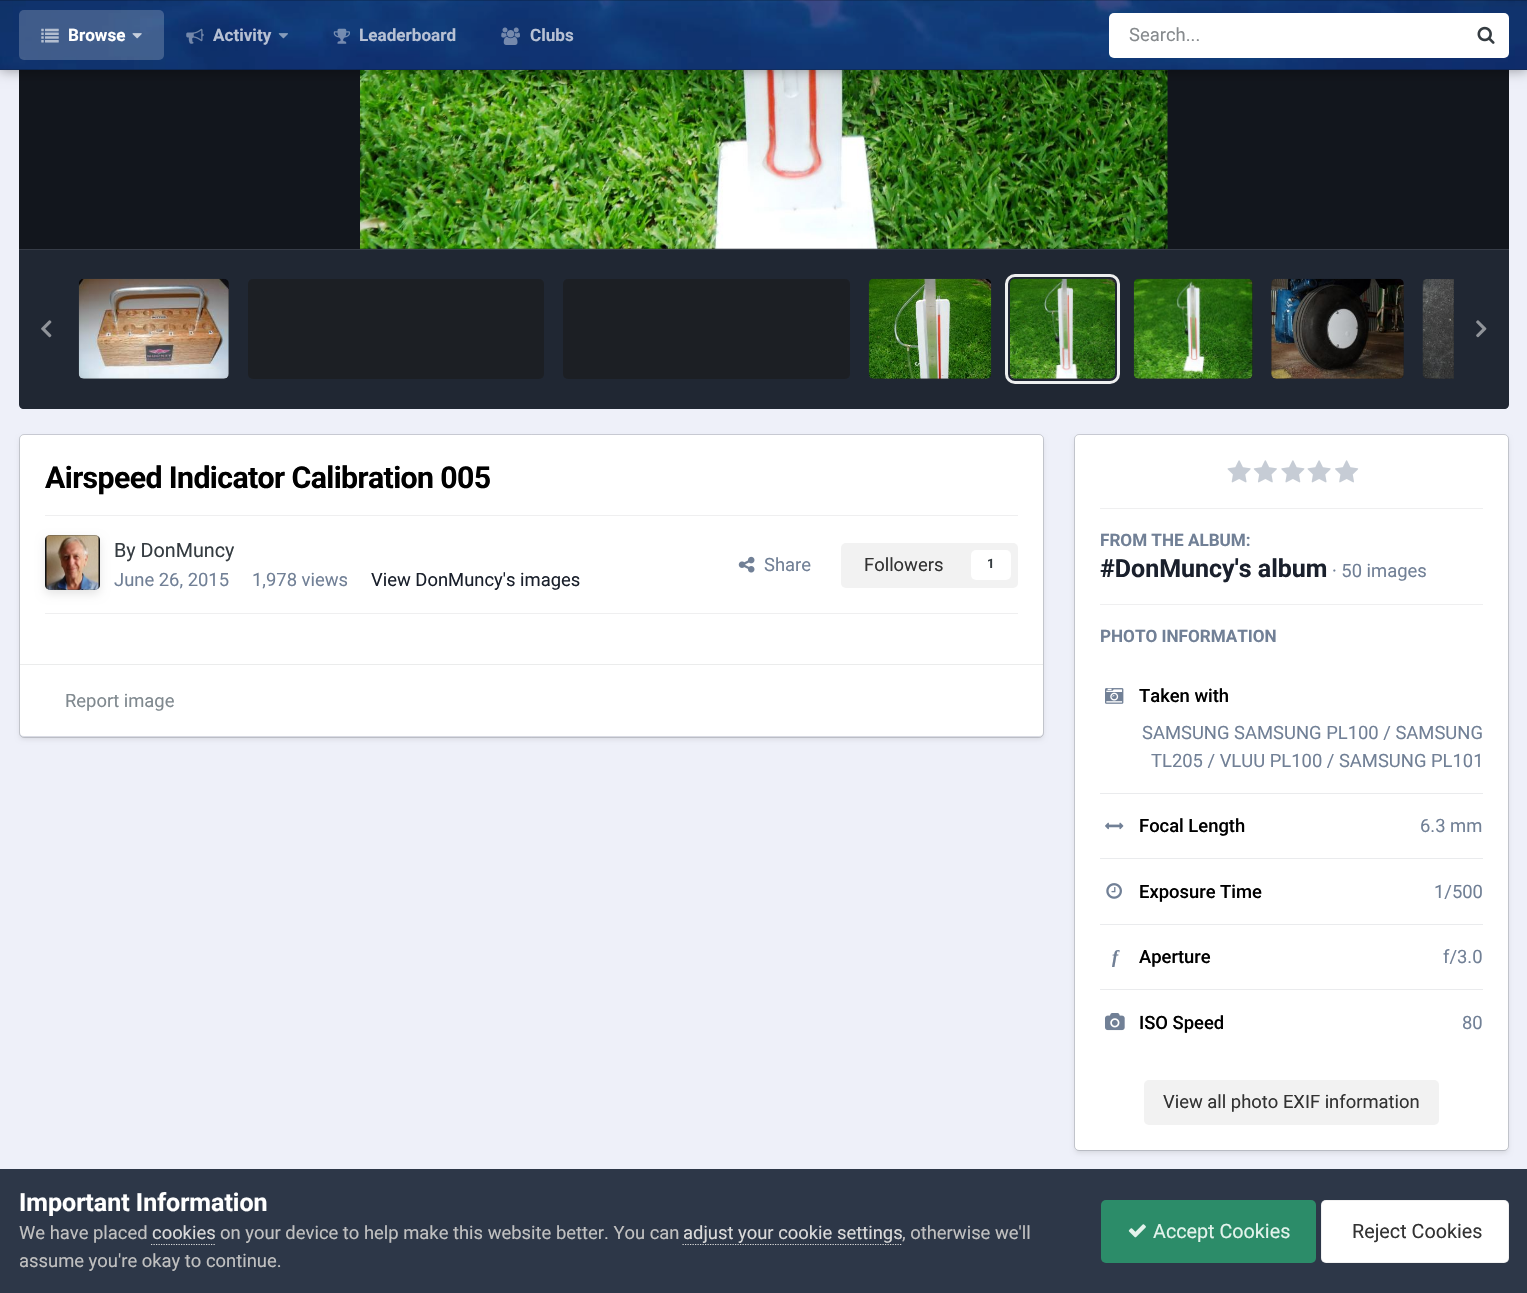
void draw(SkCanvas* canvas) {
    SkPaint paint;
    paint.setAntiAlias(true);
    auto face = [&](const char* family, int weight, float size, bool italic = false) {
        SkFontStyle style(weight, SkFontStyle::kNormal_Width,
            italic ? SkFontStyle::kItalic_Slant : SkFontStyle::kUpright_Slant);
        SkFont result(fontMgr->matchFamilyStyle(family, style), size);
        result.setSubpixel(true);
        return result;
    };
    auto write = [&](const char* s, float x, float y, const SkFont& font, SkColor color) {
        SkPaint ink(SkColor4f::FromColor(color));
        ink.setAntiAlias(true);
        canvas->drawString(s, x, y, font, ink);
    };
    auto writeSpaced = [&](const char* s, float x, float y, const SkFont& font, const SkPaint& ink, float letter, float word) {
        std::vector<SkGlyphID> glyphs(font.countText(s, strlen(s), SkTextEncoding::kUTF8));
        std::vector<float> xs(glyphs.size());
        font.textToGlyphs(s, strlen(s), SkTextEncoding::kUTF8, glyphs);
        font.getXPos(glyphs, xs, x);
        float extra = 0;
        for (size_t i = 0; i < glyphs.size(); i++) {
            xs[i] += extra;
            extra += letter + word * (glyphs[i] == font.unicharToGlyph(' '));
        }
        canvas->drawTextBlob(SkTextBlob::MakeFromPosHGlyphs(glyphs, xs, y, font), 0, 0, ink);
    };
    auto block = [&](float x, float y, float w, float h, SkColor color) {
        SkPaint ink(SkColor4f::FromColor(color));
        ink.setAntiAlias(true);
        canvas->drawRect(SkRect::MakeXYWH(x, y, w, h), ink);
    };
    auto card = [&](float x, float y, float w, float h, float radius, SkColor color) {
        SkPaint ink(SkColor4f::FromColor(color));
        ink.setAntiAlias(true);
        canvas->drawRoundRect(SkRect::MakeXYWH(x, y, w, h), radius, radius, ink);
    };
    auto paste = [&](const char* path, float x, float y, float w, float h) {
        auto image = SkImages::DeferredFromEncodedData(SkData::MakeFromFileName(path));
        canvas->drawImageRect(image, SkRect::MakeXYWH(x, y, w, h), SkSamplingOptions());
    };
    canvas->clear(SkColorSetRGB(238, 240, 249));
    block(19, 69, 1490, 180, SkColorSetRGB(18, 22, 29));
    paste("pic9.png", 360, 69, 808, 180);
    paint.setColor(SkColorSetARGB(89, 0, 0, 0));
    paint.setMaskFilter(SkMaskFilter::MakeBlur(kNormal_SkBlurStyle, 6));
    canvas->drawRect(SkRect::MakeXYWH(0, -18, 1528, 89), paint);
    paint.setMaskFilter(nullptr);
    paste("pic1.png", 0, 0, 1527, 70);
    block(0, 0, 1527, 70, SkColorSetARGB(51, 0, 0, 0));
    block(0, 0, 1527, 1, SkColorSetARGB(51, 0, 0, 0));
    block(0, 69, 1527, 1, SkColorSetARGB(51, 0, 0, 0));
    card(19, 10, 145, 50, 5, SkColorSetARGB(51, 255, 255, 255));
    paste("pic2.png", 41, 28, 18, 15);
    auto kFont1 = face("Roboto", 700, 17.1f);
    write("Browse", 68, 41, kFont1, SK_ColorWHITE);
    paste("pic3.png", 132, 33, 10, 6);
    paste("pic4.png", 186, 28, 18, 16);
    write("Activity", 213, 41, kFont1, SkColorSetRGB(183, 193, 212));
    paste("pic5.png", 278, 33, 10, 6);
    paste("pic6.png", 333, 28, 17, 16);
    write("Leaderboard", 359, 41, kFont1, SkColorSetRGB(183, 193, 212));
    paste("pic7.png", 501, 27, 19, 18);
    write("Clubs", 530, 41, kFont1, SkColorSetRGB(183, 193, 212));
    card(1109, 13, 400, 45, 5, SK_ColorWHITE);
    auto kFont2 = face("Roboto", 400, 18.4f);
    write("Search...", 1129, 41, kFont2, SkColorSetRGB(134, 138, 141));
    paste("pic8.png", 1477, 26, 18, 18);
    paint.setColor(SkColorSetRGB(45, 55, 72));
    canvas->drawPath(SkPathBuilder().moveTo(19, 249).lineTo(1509, 249).lineTo(1509, 404).cubicTo(1509, 407, 1507, 409, 1504, 409).lineTo(24, 409).cubicTo(21, 409, 19, 407, 19, 404).close().detach(), paint);
    paint.setColor(SkColorSetARGB(77, 0, 0, 0));
    canvas->drawPath(SkPathBuilder().moveTo(19, 249).lineTo(1509, 249).lineTo(1509, 404).cubicTo(1509, 407, 1507, 409, 1504, 409).lineTo(24, 409).cubicTo(21, 409, 19, 407, 19, 404).close().detach(), paint);
    block(19, 249, 1490, 1, SkColorSetRGB(54, 60, 71));
    card(79, 279, 150, 100, 5, SkColorSetRGB(20, 20, 20));
    card(79, 279, 150, 100, 5, SkColorSetARGB(77, 45, 55, 72));
    paste("pic10.png", 78, 278, 151, 101);
    card(248, 279, 296, 100, 5, SkColorSetRGB(20, 20, 20));
    card(248, 279, 296, 100, 5, SkColorSetARGB(77, 45, 55, 72));
    card(563, 279, 287, 100, 5, SkColorSetRGB(20, 20, 20));
    card(563, 279, 287, 100, 5, SkColorSetARGB(77, 45, 55, 72));
    card(869, 279, 122, 100, 5, SkColorSetRGB(20, 20, 20));
    card(869, 279, 122, 100, 5, SkColorSetARGB(77, 45, 55, 72));
    paste("pic11.png", 868, 278, 124, 101);
    card(1010, 279, 105, 100, 5, SkColorSetRGB(20, 20, 20));
    card(1010, 279, 105, 100, 5, SkColorSetARGB(77, 45, 55, 72));
    paint.setStyle(SkPaint::kStroke_Style);
    paint.setStrokeWidth(3);
    paint.setColor(SkColorSetRGB(238, 239, 239));
    canvas->drawRoundRect(SkRect::MakeXYWH(1006.5f, 275.5f, 112, 107), 8.5f, 8.5f, paint);
    paste("pic12.png", 1010, 278, 105, 101);
    card(1134, 279, 119, 100, 5, SkColorSetRGB(20, 20, 20));
    card(1134, 279, 119, 100, 5, SkColorSetARGB(77, 45, 55, 72));
    paste("pic13.png", 1133, 278, 120, 101);
    card(1271, 279, 133, 100, 5, SkColorSetRGB(20, 20, 20));
    card(1271, 279, 133, 100, 5, SkColorSetARGB(77, 45, 55, 72));
    paste("pic14.png", 1271, 278, 133, 101);
    paint.setStyle(SkPaint::kFill_Style);
    paint.setColor(SkColorSetRGB(20, 20, 20));
    canvas->drawPath(SkPathBuilder().moveTo(1428, 279).lineTo(1454, 279).lineTo(1454, 379).lineTo(1428, 379).cubicTo(1425, 379, 1423, 377, 1423, 374).lineTo(1423, 284).cubicTo(1423, 281, 1425, 279, 1428, 279).close().detach(), paint);
    paint.setColor(SkColorSetARGB(77, 45, 55, 72));
    canvas->drawPath(SkPathBuilder().moveTo(1428, 279).lineTo(1454, 279).lineTo(1454, 379).lineTo(1428, 379).cubicTo(1425, 379, 1423, 377, 1423, 374).lineTo(1423, 284).cubicTo(1423, 281, 1425, 279, 1428, 279).close().detach(), paint);
    paste("pic15.png", 1422, 279, 32, 100);
    paste("pic16.png", 41, 320, 11, 18);
    paste("pic17.png", 1476, 320, 11, 18);
    paint.setColor(SkColorSetARGB(26, 0, 0, 0));
    paint.setMaskFilter(SkMaskFilter::MakeBlur(kNormal_SkBlurStyle, 2.5f));
    canvas->drawRoundRect(SkRect::MakeXYWH(20, 438, 1023, 301), 4, 4, paint);
    paint.setMaskFilter(nullptr);
    card(20, 435, 1023, 301, 4, SK_ColorWHITE);
    paint.setStyle(SkPaint::kStroke_Style);
    paint.setStrokeWidth(1);
    paint.setColor(SkColorSetARGB(51, 53, 60, 65));
    canvas->drawRoundRect(SkRect::MakeXYWH(19.5f, 434.5f, 1024, 303), 4.5f, 4.5f, paint);
    auto kFont3 = face("Roboto", 700, 30.25f);
    paint.setStyle(SkPaint::kFill_Style);
    paint.setColor(SK_ColorBLACK);
    writeSpaced("Airspeed Indicator Calibration 005", 45, 488, kFont3, paint, -0.6f, 0);
    block(45, 515, 973, 1, SkColorSetRGB(239, 239, 240));
    paste("pic18.png", 45, 535, 55, 55);
    canvas->save();
    canvas->clipPath(SkPathBuilder(SkPathFillType::kEvenOdd).moveTo(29, 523).lineTo(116, 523).lineTo(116, 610).lineTo(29, 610).close().moveTo(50, 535).lineTo(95, 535).cubicTo(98, 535, 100, 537, 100, 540).lineTo(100, 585).cubicTo(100, 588, 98, 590, 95, 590).lineTo(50, 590).cubicTo(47, 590, 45, 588, 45, 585).lineTo(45, 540).cubicTo(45, 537, 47, 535, 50, 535).close().detach(), true);
    paint.setColor(SkColorSetARGB(26, 0, 0, 0));
    paint.setMaskFilter(SkMaskFilter::MakeBlur(kNormal_SkBlurStyle, 5));
    canvas->drawRoundRect(SkRect::MakeXYWH(45, 539, 55, 55), 5, 5, paint);
    paint.setMaskFilter(nullptr);
    canvas->restore();
    paint.setStyle(SkPaint::kStroke_Style);
    paint.setColor(SkColorSetARGB(77, 53, 60, 65));
    canvas->drawRoundRect(SkRect::MakeXYWH(45.5f, 535.5f, 54, 54), 4.5f, 4.5f, paint);
    auto kFont4 = face("Roboto", 400, 19.75f);
    write("By DonMuncy", 114, 557, kFont4, SkColorSetRGB(53, 60, 65));
    write("June 26, 2015", 114, 586, kFont2, SkColorSetRGB(113, 128, 150));
    write("1,978 views", 252, 586, kFont2, SkColorSetRGB(113, 128, 150));
    write("View DonMuncy's images", 371, 586, kFont2, SkColorSetRGB(26, 32, 44));
    paste("pic19.png", 738, 556, 17, 17);
    write("Share", 764, 571, kFont2, SkColorSetRGB(113, 128, 150));
    card(841, 543, 177, 45, 5, SkColorSetRGB(242, 242, 242));
    write("Followers", 864, 571, kFont2, SkColorSetRGB(51, 51, 51));
    card(971, 550, 40, 30, 5, SK_ColorWHITE);
    auto kFont5 = face("Roboto", 700, 13);
    write("1", 987, 568, kFont5, SkColorSetRGB(53, 60, 65));
    block(45, 613, 973, 1, SkColorSetRGB(239, 239, 240));
    block(20, 664, 1023, 1, SkColorSetRGB(235, 236, 236));
    write("Report image", 65, 707, kFont2, SkColorSetRGB(128, 137, 143));
    paint.setStyle(SkPaint::kFill_Style);
    paint.setColor(SkColorSetARGB(26, 0, 0, 0));
    paint.setMaskFilter(SkMaskFilter::MakeBlur(kNormal_SkBlurStyle, 2.5f));
    canvas->drawRoundRect(SkRect::MakeXYWH(1075, 438, 433, 715), 4, 4, paint);
    paint.setMaskFilter(nullptr);
    card(1075, 435, 433, 715, 4, SK_ColorWHITE);
    paint.setStyle(SkPaint::kStroke_Style);
    paint.setColor(SkColorSetARGB(51, 53, 60, 65));
    canvas->drawRoundRect(SkRect::MakeXYWH(1074.5f, 434.5f, 434, 716), 4.5f, 4.5f, paint);
    paste("pic20.png", 1227, 460, 24, 23);
    paste("pic21.png", 1253, 460, 24, 23);
    paste("pic22.png", 1281, 460, 24, 23);
    paste("pic20.png", 1307, 460, 24, 23);
    paste("pic23.png", 1335, 460, 24, 23);
    block(1100, 508, 383, 1, SkColorSetRGB(239, 239, 240));
    write("FROM THE ALBUM:", 1100, 546, kFont1, SkColorSetRGB(113, 128, 150));
    auto kFont6 = face("Roboto", 700, 25);
    write("#DonMuncy's album", 1100, 577, kFont6, SkColorSetRGB(26, 32, 44));
    write("· 50 images", 1332, 577, kFont2, SkColorSetRGB(113, 128, 150));
    block(1100, 604, 383, 1, SkColorSetRGB(239, 239, 240));
    write("PHOTO INFORMATION", 1100, 642, kFont1, SkColorSetRGB(113, 128, 150));
    block(1100, 793, 383, 1, SkColorSetRGB(234, 235, 237));
    paste("pic24.png", 1105, 688, 19, 16);
    auto kFont7 = face("Roboto", 500, 18.4f);
    write("Taken with", 1139, 702, kFont7, SK_ColorBLACK);
    write("SAMSUNG SAMSUNG PL100 / SAMSUNG", 1142, 739, kFont2, SkColorSetRGB(113, 128, 150));
    write("TL205 / VLUU PL100 / SAMSUNG PL101", 1151, 767, kFont2, SkColorSetRGB(113, 128, 150));
    block(1100, 858, 383, 1, SkColorSetRGB(234, 235, 237));
    paste("pic25.png", 1105, 822, 19, 8);
    write("Focal Length", 1139, 832, kFont7, SK_ColorBLACK);
    write("6.3 mm", 1420, 832, kFont2, SkColorSetRGB(113, 128, 150));
    block(1100, 924, 383, 1, SkColorSetRGB(234, 235, 237));
    paste("pic26.png", 1106, 883, 16, 16);
    write("Exposure Time", 1139, 898, kFont7, SK_ColorBLACK);
    write("1/500", 1434, 898, kFont2, SkColorSetRGB(113, 128, 150));
    block(1100, 989, 383, 1, SkColorSetRGB(234, 235, 237));
    auto kFont8 = face("Liberation Serif", 700, 18.4f, true);
    write("f", 1112, 963, kFont8, SkColorSetRGB(113, 128, 150));
    write("Aperture", 1139, 963, kFont7, SK_ColorBLACK);
    write("f/3.0", 1443, 963, kFont2, SkColorSetRGB(113, 128, 150));
    paste("pic27.png", 1105, 1013, 20, 18);
    write("ISO Speed", 1139, 1029, kFont7, SK_ColorBLACK);
    write("80", 1462, 1029, kFont2, SkColorSetRGB(113, 128, 150));
    card(1144, 1080, 295, 45, 5, SkColorSetRGB(242, 242, 242));
    write("View all photo EXIF information", 1163, 1108, kFont2, SkColorSetRGB(51, 51, 51));
    block(0, 1169, 1527, 124, SkColorSetRGB(45, 55, 72));
    write("Important Information", 19, 1211, kFont6, SK_ColorWHITE);
    write("We have placed", 19, 1239, kFont2, SkColorSetRGB(192, 192, 192));
    write("cookies", 152, 1239, kFont2, SkColorSetRGB(218, 218, 218));
    paint.setStrokeWidth(1.2f);
    paint.setColor(SkColorSetRGB(218, 218, 218));
    paint.setPathEffect(SkDashPathEffect::Make({{1.25f, 1.25f}}, 0));
    canvas->drawPath(SkPathBuilder().moveTo(151, 1244.5f).lineTo(215, 1244.5f).detach(), paint);
    paint.setPathEffect(nullptr);
    write("on your device to help make this website better. You can", 220, 1239, kFont2, SkColorSetRGB(192, 192, 192));
    write("adjust your cookie settings", 683, 1239, kFont2, SkColorSetRGB(218, 218, 218));
    paint.setPathEffect(SkDashPathEffect::Make({{1.25f, 1.25f}}, 0));
    canvas->drawPath(SkPathBuilder().moveTo(682.5f, 1244.5f).lineTo(902.5f, 1244.5f).detach(), paint);
    paint.setPathEffect(nullptr);
    write(", otherwise we'll", 902, 1239, kFont2, SkColorSetRGB(192, 192, 192));
    write("assume you're okay to continue.", 19, 1267, kFont2, SkColorSetRGB(192, 192, 192));
    card(1101, 1200, 215, 63, 5, SkColorSetRGB(44, 140, 105));
    paste("pic28.png", 1128, 1224, 18, 14);
    write("Accept Cookies", 1153, 1238, kFont4, SkColorSetRGB(227, 243, 236));
    card(1321, 1200, 188, 63, 5, SK_ColorWHITE);
    paint.setStrokeWidth(1);
    paint.setColor(SkColorSetARGB(18, 51, 51, 51));
    canvas->drawRoundRect(SkRect::MakeXYWH(1321.5f, 1200.5f, 187, 62), 4.5f, 4.5f, paint);
    write("Reject Cookies", 1352, 1238, kFont4, SkColorSetRGB(51, 51, 51));
}
